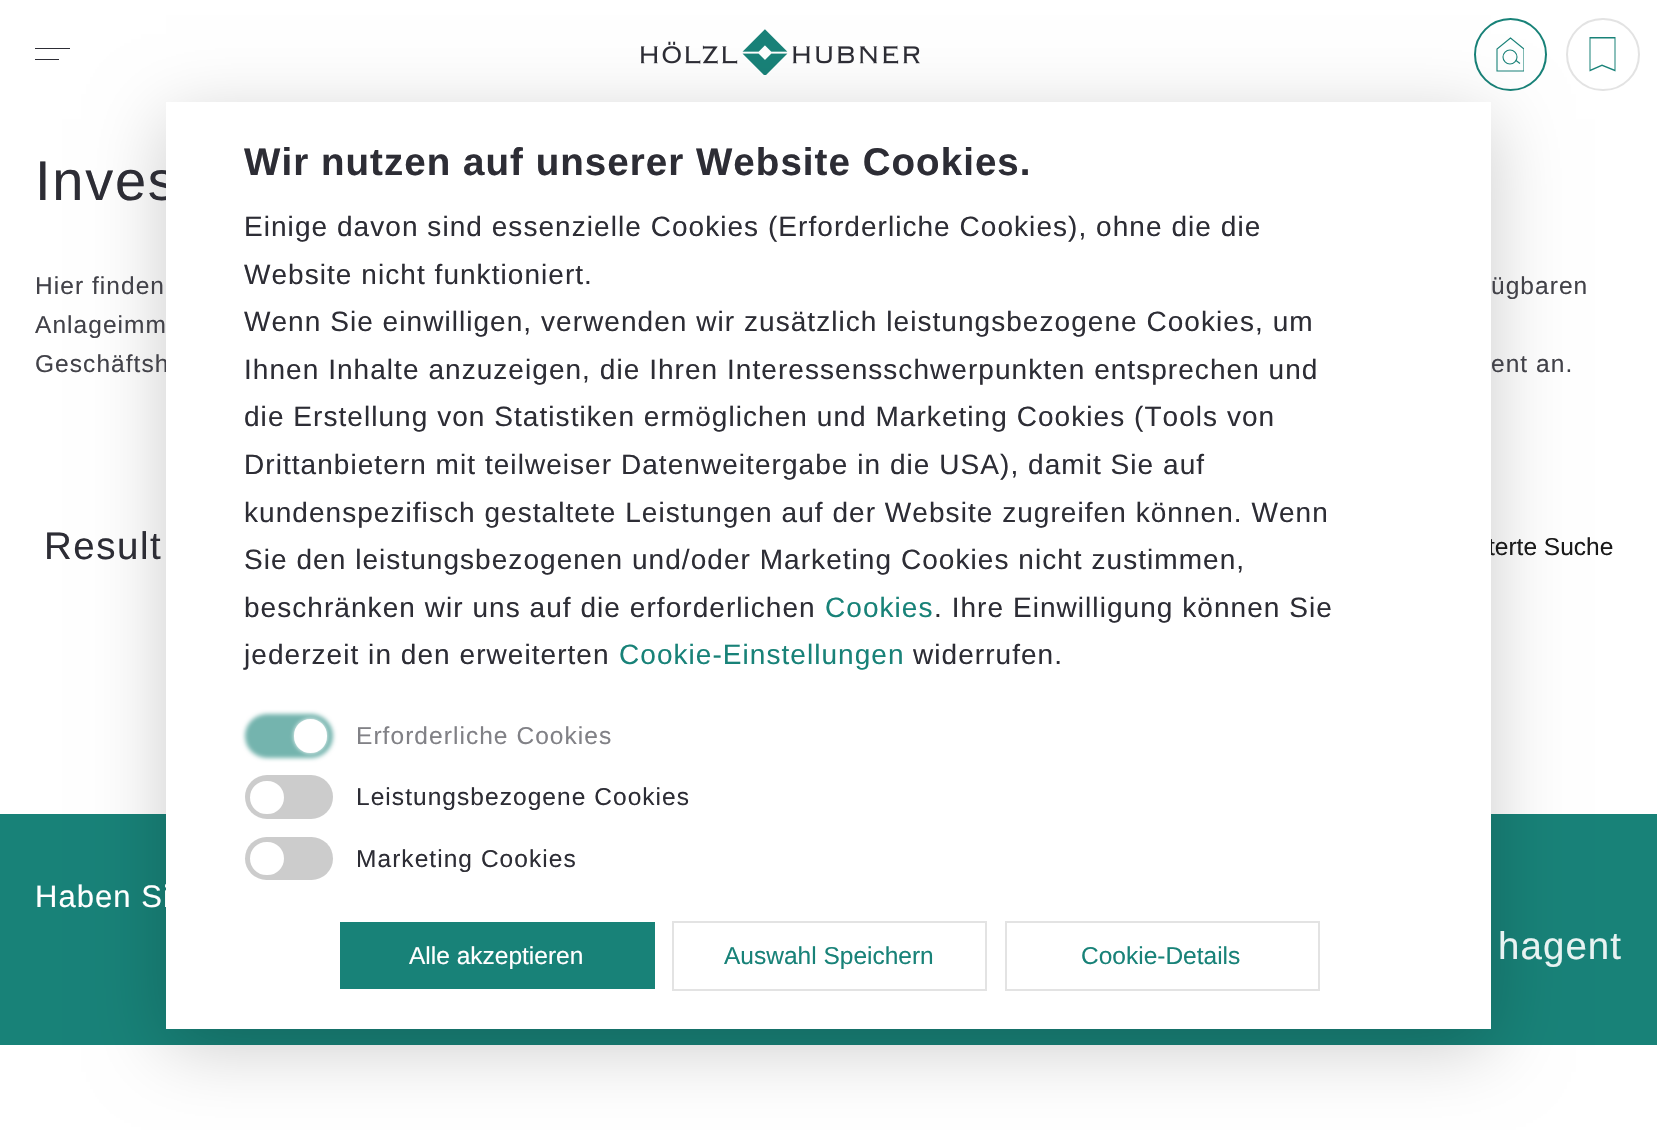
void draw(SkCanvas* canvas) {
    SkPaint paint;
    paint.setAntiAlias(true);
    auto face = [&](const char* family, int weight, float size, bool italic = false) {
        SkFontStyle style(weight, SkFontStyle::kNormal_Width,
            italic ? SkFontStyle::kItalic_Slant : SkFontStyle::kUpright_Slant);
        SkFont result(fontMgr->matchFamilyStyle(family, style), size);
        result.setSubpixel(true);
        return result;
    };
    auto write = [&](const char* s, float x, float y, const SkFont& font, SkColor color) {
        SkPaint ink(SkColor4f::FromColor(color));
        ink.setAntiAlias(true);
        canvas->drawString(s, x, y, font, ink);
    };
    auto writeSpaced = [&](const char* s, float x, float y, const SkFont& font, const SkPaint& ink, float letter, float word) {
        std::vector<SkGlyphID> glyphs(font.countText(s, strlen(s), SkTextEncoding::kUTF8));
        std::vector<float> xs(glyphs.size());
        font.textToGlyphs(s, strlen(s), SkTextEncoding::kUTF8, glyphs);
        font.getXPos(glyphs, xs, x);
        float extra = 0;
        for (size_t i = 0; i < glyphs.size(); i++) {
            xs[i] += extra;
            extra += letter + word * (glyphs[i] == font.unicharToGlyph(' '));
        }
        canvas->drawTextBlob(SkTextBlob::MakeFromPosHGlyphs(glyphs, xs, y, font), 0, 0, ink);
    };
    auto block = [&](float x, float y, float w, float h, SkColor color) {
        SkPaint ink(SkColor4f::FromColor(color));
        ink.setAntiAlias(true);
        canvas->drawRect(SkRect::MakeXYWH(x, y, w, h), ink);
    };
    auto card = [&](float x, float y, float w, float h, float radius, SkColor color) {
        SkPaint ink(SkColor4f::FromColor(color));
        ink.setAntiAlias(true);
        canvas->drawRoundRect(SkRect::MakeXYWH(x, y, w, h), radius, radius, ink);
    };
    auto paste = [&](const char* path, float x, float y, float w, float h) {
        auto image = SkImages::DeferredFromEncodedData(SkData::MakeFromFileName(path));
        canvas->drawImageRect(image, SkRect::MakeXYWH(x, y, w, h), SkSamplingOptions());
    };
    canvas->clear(SK_ColorWHITE);
    block(35, 48, 35, 1, SkColorSetRGB(45, 45, 53));
    block(35, 59, 24, 1, SkColorSetRGB(45, 45, 53));
    paste("pic1.png", 641, 29, 279, 46);
    paint.setStyle(SkPaint::kStroke_Style);
    paint.setStrokeWidth(2);
    paint.setColor(SkColorSetRGB(24, 130, 120));
    canvas->drawCircle(1510.5f, 54.5f, 35.5f, paint);
    paint.setStrokeWidth(1.1f);
    canvas->drawCircle(1510, 57, 7, paint);
    canvas->drawPath(SkPathBuilder().moveTo(1516, 60.5f).lineTo(1520, 63.5f).detach(), paint);
    canvas->save();
    canvas->clipRect(SkRect::MakeXYWH(1496, 37, 28, 35));
    canvas->drawPath(SkPathBuilder().moveTo(1497, 71).lineTo(1497, 49).lineTo(1510.5f, 38).lineTo(1524, 49).lineTo(1524, 71).close().detach(), paint);
    canvas->restore();
    paint.setStrokeWidth(2);
    paint.setColor(SkColorSetRGB(227, 227, 227));
    canvas->drawRoundRect(SkRect::MakeXYWH(1567, 19, 72, 71), 35.5f, 35.5f, paint);
    paint.setStyle(SkPaint::kFill_Style);
    paint.setColor(SkColorSetRGB(24, 130, 120));
    canvas->drawPath(SkPathBuilder().moveTo(1615.5f, 37).lineTo(1589.5f, 37).lineTo(1589.5f, 71.5f).lineTo(1602, 66).lineTo(1615.5f, 71.5f).close().moveTo(1590.5f, 69.5f).lineTo(1590.5f, 38.5f).lineTo(1614.5f, 38.5f).lineTo(1614.5f, 69.5f).lineTo(1602, 64.5f).close().detach(), paint);
    block(0, 814, 1657, 231, SkColorSetRGB(24, 130, 120));
    paint.setColor(SkColorSetARGB(51, 0, 0, 0));
    paint.setMaskFilter(SkMaskFilter::MakeBlur(kNormal_SkBlurStyle, 35));
    canvas->drawRect(SkRect::MakeXYWH(166, 119, 1325, 928), paint);
    paint.setMaskFilter(nullptr);
    auto kFont1 = face("Liberation Sans", 400, 56);
    paint.setColor(SkColorSetRGB(45, 45, 53));
    writeSpaced("Inves", 35, 200, kFont1, paint, 1.75f, 0);
    auto kFont2 = face("Liberation Sans", 400, 24.5f);
    paint.setColor(SkColorSetRGB(66, 66, 73));
    writeSpaced("Geschäftsh", 35, 372, kFont2, paint, 1.05f, 0);
    write("terte Suche", 1488, 555, kFont2, SkColorSetRGB(26, 26, 26));
    block(166, 102, 1325, 927, SK_ColorWHITE);
    auto kFont3 = face("Liberation Sans", 700, 38.5f);
    paint.setColor(SkColorSetRGB(45, 45, 53));
    writeSpaced("Wir nutzen auf unserer Website Cookies.", 244, 175, kFont3, paint, 1.05f, 0);
    auto kFont4 = face("Liberation Sans", 400, 28);
    writeSpaced("Einige davon sind essenzielle Cookies (Erforderliche Cookies), ohne die die", 244, 236, kFont4, paint, 1.05f, 0);
    writeSpaced("Website nicht funktioniert.", 244, 284, kFont4, paint, 1.05f, 0);
    writeSpaced("Wenn Sie einwilligen, verwenden wir zusätzlich leistungsbezogene Cookies, um", 244, 331, kFont4, paint, 1.05f, 0);
    writeSpaced("Ihnen Inhalte anzuzeigen, die Ihren Interessensschwerpunkten entsprechen und", 244, 379, kFont4, paint, 1.05f, 0);
    writeSpaced("die Erstellung von Statistiken ermöglichen und Marketing Cookies (Tools von", 244, 426, kFont4, paint, 1.05f, 0);
    writeSpaced("Drittanbietern mit teilweiser Datenweitergabe in die USA), damit Sie auf", 244, 474, kFont4, paint, 1.05f, 0);
    writeSpaced("kundenspezifisch gestaltete Leistungen auf der Website zugreifen können. Wenn", 244, 522, kFont4, paint, 1.05f, 0);
    writeSpaced("Sie den leistungsbezogenen und/oder Marketing Cookies nicht zustimmen,", 244, 569, kFont4, paint, 1.05f, 0);
    writeSpaced("beschränken wir uns auf die erforderlichen", 244, 617, kFont4, paint, 1.05f, 0);
    paint.setColor(SkColorSetRGB(24, 130, 120));
    writeSpaced("Cookies", 825, 617, kFont4, paint, 1.05f, 0);
    paint.setColor(SkColorSetRGB(45, 45, 53));
    writeSpaced(". Ihre Einwilligung können Sie", 934, 617, kFont4, paint, 1.05f, 0);
    writeSpaced("jederzeit in den erweiterten", 244, 664, kFont4, paint, 1.05f, 0);
    paint.setColor(SkColorSetRGB(24, 130, 120));
    writeSpaced("Cookie-Einstellungen", 619, 664, kFont4, paint, 1.05f, 0);
    paint.setColor(SkColorSetRGB(45, 45, 53));
    writeSpaced("widerrufen.", 913, 664, kFont4, paint, 1.05f, 0);
    paint.setColor(SkColorSetRGB(116, 180, 174));
    paint.setMaskFilter(SkMaskFilter::MakeBlur(kNormal_SkBlurStyle, 2));
    canvas->drawRoundRect(SkRect::MakeXYWH(245, 714, 88, 44), 22, 22, paint);
    paint.setMaskFilter(nullptr);
    paint.setColor(SK_ColorWHITE);
    paint.setMaskFilter(SkMaskFilter::MakeBlur(kNormal_SkBlurStyle, 2));
    canvas->drawRoundRect(SkRect::MakeXYWH(294, 719, 33, 34), 16.5f, 16.5f, paint);
    paint.setMaskFilter(nullptr);
    paint.setStyle(SkPaint::kStroke_Style);
    paint.setStrokeWidth(12);
    canvas->drawRoundRect(SkRect::MakeXYWH(300, 725, 21, 22), 10.5f, 10.5f, paint);
    paint.setStyle(SkPaint::kFill_Style);
    paint.setColor(SkColorSetRGB(129, 129, 134));
    writeSpaced("Erforderliche Cookies", 356, 744, kFont2, paint, 1.05f, 0);
    card(245, 775, 88, 44, 22, SkColorSetRGB(204, 204, 204));
    paint.setColor(SK_ColorWHITE);
    canvas->drawRoundRect(SkRect::MakeXYWH(256, 787, 22, 21), 10.5f, 10.5f, paint);
    paint.setStyle(SkPaint::kStroke_Style);
    canvas->drawRoundRect(SkRect::MakeXYWH(256, 787, 22, 21), 10.5f, 10.5f, paint);
    paint.setStyle(SkPaint::kFill_Style);
    paint.setColor(SkColorSetRGB(45, 45, 53));
    writeSpaced("Leistungsbezogene Cookies", 356, 805, kFont2, paint, 1.05f, 0);
    card(245, 837, 88, 43, 21.5f, SkColorSetRGB(204, 204, 204));
    paint.setColor(SK_ColorWHITE);
    canvas->drawRoundRect(SkRect::MakeXYWH(256, 848, 22, 21), 10.5f, 10.5f, paint);
    paint.setStyle(SkPaint::kStroke_Style);
    canvas->drawRoundRect(SkRect::MakeXYWH(256, 848, 22, 21), 10.5f, 10.5f, paint);
    paint.setStyle(SkPaint::kFill_Style);
    paint.setColor(SkColorSetRGB(45, 45, 53));
    writeSpaced("Marketing Cookies", 356, 867, kFont2, paint, 1.05f, 0);
    block(340, 922, 315, 67, SkColorSetRGB(24, 130, 120));
    write("Alle akzeptieren", 409, 964, kFont2, SK_ColorWHITE);
    paint.setStyle(SkPaint::kStroke_Style);
    paint.setStrokeWidth(2);
    paint.setColor(SkColorSetRGB(227, 227, 227));
    canvas->drawRect(SkRect::MakeXYWH(673, 922, 313, 68), paint);
    write("Auswahl Speichern", 724, 964, kFont2, SkColorSetRGB(24, 130, 120));
    canvas->drawRect(SkRect::MakeXYWH(1006, 922, 313, 68), paint);
    write("Cookie-Details", 1081, 964, kFont2, SkColorSetRGB(24, 130, 120));
    paint.setStyle(SkPaint::kFill_Style);
    paint.setColor(SkColorSetRGB(66, 66, 73));
    writeSpaced("Hier finden", 35, 294, kFont2, paint, 1.05f, 0);
    writeSpaced("ügbaren", 1491, 294, kFont2, paint, 1.05f, 0);
    writeSpaced("Anlageimm", 35, 333, kFont2, paint, 1.05f, 0);
    writeSpaced("ent an.", 1491, 372, kFont2, paint, 1.05f, 0);
    auto kFont5 = face("Liberation Sans", 400, 38.5f);
    paint.setColor(SkColorSetRGB(45, 45, 53));
    writeSpaced("Result", 44, 559, kFont5, paint, 1.5f, 0);
    auto kFont6 = face("Liberation Sans", 400, 31);
    paint.setColor(SK_ColorWHITE);
    writeSpaced("Haben Si", 35, 907, kFont6, paint, 1.05f, 0);
    paint.setColor(SkColorSetRGB(232, 243, 242));
    writeSpaced("hagent", 1498, 959, kFont5, paint, 1.05f, 0);
}
